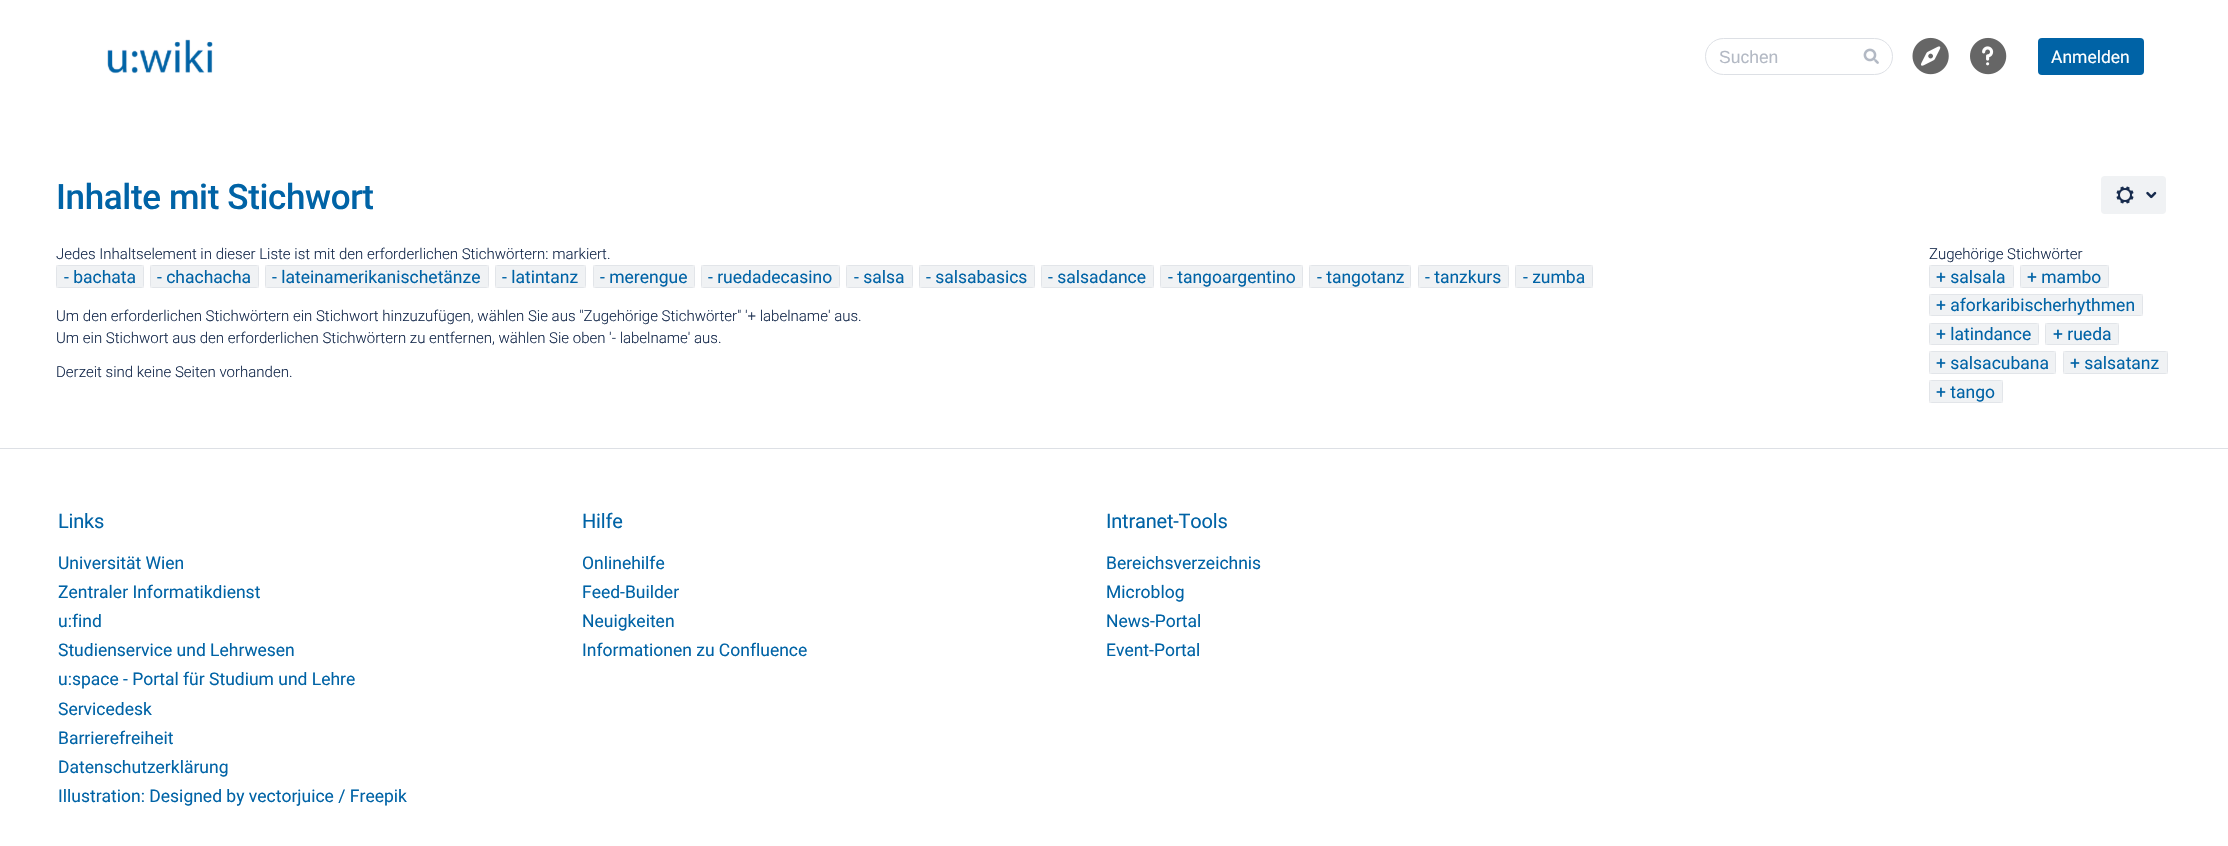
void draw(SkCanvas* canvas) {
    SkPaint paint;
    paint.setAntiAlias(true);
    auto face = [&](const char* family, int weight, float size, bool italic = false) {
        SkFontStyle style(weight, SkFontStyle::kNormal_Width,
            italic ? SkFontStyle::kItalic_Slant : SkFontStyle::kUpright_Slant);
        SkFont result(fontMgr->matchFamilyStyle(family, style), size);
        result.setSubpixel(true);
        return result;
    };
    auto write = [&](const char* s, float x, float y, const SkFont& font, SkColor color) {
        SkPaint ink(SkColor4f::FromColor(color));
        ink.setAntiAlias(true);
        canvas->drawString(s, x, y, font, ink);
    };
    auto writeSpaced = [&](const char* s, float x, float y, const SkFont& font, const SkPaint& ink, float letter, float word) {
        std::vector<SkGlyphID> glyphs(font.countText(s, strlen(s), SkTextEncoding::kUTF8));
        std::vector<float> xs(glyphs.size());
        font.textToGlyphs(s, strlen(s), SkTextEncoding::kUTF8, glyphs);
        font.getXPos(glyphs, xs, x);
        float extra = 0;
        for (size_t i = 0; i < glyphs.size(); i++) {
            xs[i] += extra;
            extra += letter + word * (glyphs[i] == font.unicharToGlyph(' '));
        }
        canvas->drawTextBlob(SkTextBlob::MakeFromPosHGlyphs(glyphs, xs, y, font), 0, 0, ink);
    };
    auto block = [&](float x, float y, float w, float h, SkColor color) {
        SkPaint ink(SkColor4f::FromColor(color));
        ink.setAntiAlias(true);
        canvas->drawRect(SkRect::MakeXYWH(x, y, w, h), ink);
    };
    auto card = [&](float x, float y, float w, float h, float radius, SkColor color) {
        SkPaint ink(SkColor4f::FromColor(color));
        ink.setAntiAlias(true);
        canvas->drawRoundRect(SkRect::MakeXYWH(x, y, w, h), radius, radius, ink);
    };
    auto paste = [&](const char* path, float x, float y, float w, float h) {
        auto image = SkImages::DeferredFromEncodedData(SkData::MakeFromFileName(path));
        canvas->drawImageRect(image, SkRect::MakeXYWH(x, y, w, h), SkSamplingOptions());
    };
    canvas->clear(SK_ColorWHITE);
    paste("pic1.png", 107, 39, 106, 35);
    paint.setStyle(SkPaint::kStroke_Style);
    paint.setStrokeWidth(1);
    paint.setColor(SkColorSetRGB(221, 224, 229));
    canvas->drawRoundRect(SkRect::MakeXYWH(1705.5f, 38.5f, 187, 36), 18, 18, paint);
    auto kFont1 = face("Liberation Sans", 400, 17.5f);
    write("Suchen", 1719, 63, kFont1, SkColorSetRGB(179, 185, 196));
    paste("pic2.png", 1863, 48, 16, 16);
    paste("pic3.png", 1912, 37, 37, 38);
    paste("pic4.png", 1970, 37, 37, 38);
    card(2038, 38, 106, 37, 4, SkColorSetRGB(0, 99, 166));
    auto kFont2 = face("Roboto", 400, 17.5f);
    write("Anmelden", 2051, 63, kFont2, SK_ColorWHITE);
    auto kFont3 = face("Roboto", 500, 35);
    paint.setStyle(SkPaint::kFill_Style);
    paint.setColor(SkColorSetRGB(0, 99, 166));
    writeSpaced("Inhalte mit Stichwort", 56, 209, kFont3, paint, -0.35f, 0);
    card(2101, 176, 65, 38, 4, SkColorSetRGB(240, 242, 244));
    paste("pic5.png", 2116, 186, 18, 18);
    paste("pic6.png", 2146, 191, 11, 8);
    auto kFont4 = face("Roboto", 300, 15);
    write("Jedes Inhaltselement in dieser Liste ist mit den erforderlichen Stichwörtern: markiert.", 56, 259, kFont4, SkColorSetRGB(23, 43, 77));
    card(56, 265, 88, 23, 4, SkColorSetRGB(240, 242, 244));
    paint.setStyle(SkPaint::kStroke_Style);
    paint.setColor(SkColorSetARGB(15, 9, 30, 66));
    canvas->drawRect(SkRect::MakeXYWH(56.5f, 265.5f, 87, 22), paint);
    write("- bachata", 64, 283, kFont2, SkColorSetRGB(0, 99, 166));
    card(150, 265, 109, 23, 4, SkColorSetRGB(240, 242, 244));
    canvas->drawRect(SkRect::MakeXYWH(150.5f, 265.5f, 108, 22), paint);
    write("- chachacha", 157, 283, kFont2, SkColorSetRGB(0, 99, 166));
    card(265, 265, 224, 23, 4, SkColorSetRGB(240, 242, 244));
    canvas->drawRect(SkRect::MakeXYWH(265.5f, 265.5f, 223, 22), paint);
    write("- lateinamerikanischetänze", 272, 283, kFont2, SkColorSetRGB(0, 99, 166));
    card(495, 265, 91, 23, 4, SkColorSetRGB(240, 242, 244));
    canvas->drawRect(SkRect::MakeXYWH(495.5f, 265.5f, 90, 22), paint);
    write("- latintanz", 502, 283, kFont2, SkColorSetRGB(0, 99, 166));
    card(593, 265, 102, 23, 4, SkColorSetRGB(240, 242, 244));
    canvas->drawRect(SkRect::MakeXYWH(593.5f, 265.5f, 101, 22), paint);
    write("- merengue", 600, 283, kFont2, SkColorSetRGB(0, 99, 166));
    card(701, 265, 139, 23, 4, SkColorSetRGB(240, 242, 244));
    canvas->drawRect(SkRect::MakeXYWH(701.5f, 265.5f, 138, 22), paint);
    write("- ruedadecasino", 708, 283, kFont2, SkColorSetRGB(0, 99, 166));
    card(846, 265, 67, 23, 4, SkColorSetRGB(240, 242, 244));
    canvas->drawRect(SkRect::MakeXYWH(846.5f, 265.5f, 66, 22), paint);
    write("- salsa", 854, 283, kFont2, SkColorSetRGB(0, 99, 166));
    card(919, 265, 116, 23, 4, SkColorSetRGB(240, 242, 244));
    canvas->drawRect(SkRect::MakeXYWH(919.5f, 265.5f, 115, 22), paint);
    write("- salsabasics", 926, 283, kFont2, SkColorSetRGB(0, 99, 166));
    card(1041, 265, 113, 23, 4, SkColorSetRGB(240, 242, 244));
    canvas->drawRect(SkRect::MakeXYWH(1041.5f, 265.5f, 112, 22), paint);
    write("- salsadance", 1048, 283, kFont2, SkColorSetRGB(0, 99, 166));
    card(1160, 265, 143, 23, 4, SkColorSetRGB(240, 242, 244));
    canvas->drawRect(SkRect::MakeXYWH(1160.5f, 265.5f, 142, 22), paint);
    write("- tangoargentino", 1168, 283, kFont2, SkColorSetRGB(0, 99, 166));
    card(1309, 265, 102, 23, 4, SkColorSetRGB(240, 242, 244));
    canvas->drawRect(SkRect::MakeXYWH(1309.5f, 265.5f, 101, 22), paint);
    write("- tangotanz", 1317, 283, kFont2, SkColorSetRGB(0, 99, 166));
    card(1418, 265, 91, 23, 4, SkColorSetRGB(240, 242, 244));
    canvas->drawRect(SkRect::MakeXYWH(1418.5f, 265.5f, 90, 22), paint);
    write("- tanzkurs", 1425, 283, kFont2, SkColorSetRGB(0, 99, 166));
    card(1515, 265, 78, 23, 4, SkColorSetRGB(240, 242, 244));
    canvas->drawRect(SkRect::MakeXYWH(1515.5f, 265.5f, 77, 22), paint);
    write("- zumba", 1523, 283, kFont2, SkColorSetRGB(0, 99, 166));
    write("Um den erforderlichen Stichwörtern ein Stichwort hinzuzufügen, wählen Sie aus \"Zugehörige Stichwörter\" '+ labelname' aus.", 56, 321, kFont4, SkColorSetRGB(23, 43, 77));
    write("Um ein Stichwort aus den erforderlichen Stichwörtern zu entfernen, wählen Sie oben '- labelname' aus.", 56, 343, kFont4, SkColorSetRGB(23, 43, 77));
    write("Derzeit sind keine Seiten vorhanden.", 56, 377, kFont4, SkColorSetRGB(23, 43, 77));
    write("Zugehörige Stichwörter", 1929, 259, kFont4, SkColorSetRGB(23, 43, 77));
    card(1929, 265, 85, 23, 4, SkColorSetRGB(240, 242, 244));
    canvas->drawRect(SkRect::MakeXYWH(1929.5f, 265.5f, 84, 22), paint);
    write("+ salsala", 1936, 283, kFont2, SkColorSetRGB(0, 99, 166));
    card(2020, 265, 89, 23, 4, SkColorSetRGB(240, 242, 244));
    canvas->drawRect(SkRect::MakeXYWH(2020.5f, 265.5f, 88, 22), paint);
    write("+ mambo", 2027, 283, kFont2, SkColorSetRGB(0, 99, 166));
    card(1929, 294, 214, 22, 4, SkColorSetRGB(240, 242, 244));
    canvas->drawRect(SkRect::MakeXYWH(1929.5f, 294.5f, 213, 21), paint);
    write("+ aforkaribischerhythmen", 1936, 311, kFont2, SkColorSetRGB(0, 99, 166));
    card(1929, 323, 110, 22, 4, SkColorSetRGB(240, 242, 244));
    canvas->drawRect(SkRect::MakeXYWH(1929.5f, 323.5f, 109, 21), paint);
    write("+ latindance", 1936, 340, kFont2, SkColorSetRGB(0, 99, 166));
    card(2045, 323, 74, 22, 4, SkColorSetRGB(240, 242, 244));
    canvas->drawRect(SkRect::MakeXYWH(2045.5f, 323.5f, 73, 21), paint);
    write("+ rueda", 2053, 340, kFont2, SkColorSetRGB(0, 99, 166));
    card(1929, 351, 127, 23, 4, SkColorSetRGB(240, 242, 244));
    canvas->drawRect(SkRect::MakeXYWH(1929.5f, 351.5f, 126, 22), paint);
    write("+ salsacubana", 1936, 369, kFont2, SkColorSetRGB(0, 99, 166));
    card(2063, 351, 105, 23, 4, SkColorSetRGB(240, 242, 244));
    canvas->drawRect(SkRect::MakeXYWH(2063.5f, 351.5f, 104, 22), paint);
    write("+ salsatanz", 2070, 369, kFont2, SkColorSetRGB(0, 99, 166));
    card(1929, 380, 74, 23, 4, SkColorSetRGB(240, 242, 244));
    canvas->drawRect(SkRect::MakeXYWH(1929.5f, 380.5f, 73, 22), paint);
    write("+ tango", 1936, 398, kFont2, SkColorSetRGB(0, 99, 166));
    block(0, 448, 2228, 1, SkColorSetRGB(221, 224, 229));
    auto kFont5 = face("Roboto", 400, 20);
    paint.setStyle(SkPaint::kFill_Style);
    paint.setColor(SkColorSetRGB(0, 99, 166));
    writeSpaced("Links", 58, 528, kFont5, paint, -0.2f, 0);
    write("Universität Wien", 58, 569, kFont2, SkColorSetRGB(0, 99, 166));
    write("Zentraler Informatikdienst", 58, 598, kFont2, SkColorSetRGB(0, 99, 166));
    write("u:find", 58, 627, kFont2, SkColorSetRGB(0, 99, 166));
    write("Studienservice und Lehrwesen", 58, 656, kFont2, SkColorSetRGB(0, 99, 166));
    write("u:space - Portal für Studium und Lehre", 58, 685, kFont2, SkColorSetRGB(0, 99, 166));
    write("Servicedesk", 58, 715, kFont2, SkColorSetRGB(0, 99, 166));
    write("Barrierefreiheit", 58, 744, kFont2, SkColorSetRGB(0, 99, 166));
    write("Datenschutzerklärung", 58, 773, kFont2, SkColorSetRGB(0, 99, 166));
    write("Illustration: Designed by vectorjuice / Freepik", 58, 802, kFont2, SkColorSetRGB(0, 99, 166));
    writeSpaced("Hilfe", 582, 528, kFont5, paint, -0.2f, 0);
    write("Onlinehilfe", 582, 569, kFont2, SkColorSetRGB(0, 99, 166));
    write("Feed-Builder", 582, 598, kFont2, SkColorSetRGB(0, 99, 166));
    write("Neuigkeiten", 582, 627, kFont2, SkColorSetRGB(0, 99, 166));
    write("Informationen zu Confluence", 582, 656, kFont2, SkColorSetRGB(0, 99, 166));
    writeSpaced("Intranet-Tools", 1106, 528, kFont5, paint, -0.2f, 0);
    write("Bereichsverzeichnis", 1106, 569, kFont2, SkColorSetRGB(0, 99, 166));
    write("Microblog", 1106, 598, kFont2, SkColorSetRGB(0, 99, 166));
    write("News-Portal", 1106, 627, kFont2, SkColorSetRGB(0, 99, 166));
    write("Event-Portal", 1106, 656, kFont2, SkColorSetRGB(0, 99, 166));
}
